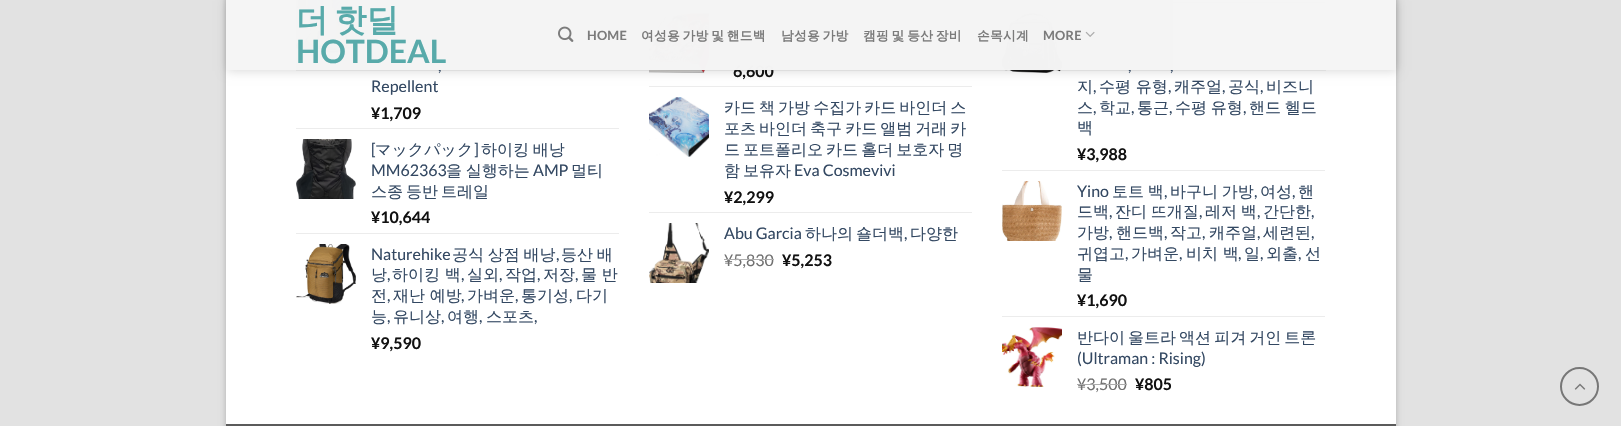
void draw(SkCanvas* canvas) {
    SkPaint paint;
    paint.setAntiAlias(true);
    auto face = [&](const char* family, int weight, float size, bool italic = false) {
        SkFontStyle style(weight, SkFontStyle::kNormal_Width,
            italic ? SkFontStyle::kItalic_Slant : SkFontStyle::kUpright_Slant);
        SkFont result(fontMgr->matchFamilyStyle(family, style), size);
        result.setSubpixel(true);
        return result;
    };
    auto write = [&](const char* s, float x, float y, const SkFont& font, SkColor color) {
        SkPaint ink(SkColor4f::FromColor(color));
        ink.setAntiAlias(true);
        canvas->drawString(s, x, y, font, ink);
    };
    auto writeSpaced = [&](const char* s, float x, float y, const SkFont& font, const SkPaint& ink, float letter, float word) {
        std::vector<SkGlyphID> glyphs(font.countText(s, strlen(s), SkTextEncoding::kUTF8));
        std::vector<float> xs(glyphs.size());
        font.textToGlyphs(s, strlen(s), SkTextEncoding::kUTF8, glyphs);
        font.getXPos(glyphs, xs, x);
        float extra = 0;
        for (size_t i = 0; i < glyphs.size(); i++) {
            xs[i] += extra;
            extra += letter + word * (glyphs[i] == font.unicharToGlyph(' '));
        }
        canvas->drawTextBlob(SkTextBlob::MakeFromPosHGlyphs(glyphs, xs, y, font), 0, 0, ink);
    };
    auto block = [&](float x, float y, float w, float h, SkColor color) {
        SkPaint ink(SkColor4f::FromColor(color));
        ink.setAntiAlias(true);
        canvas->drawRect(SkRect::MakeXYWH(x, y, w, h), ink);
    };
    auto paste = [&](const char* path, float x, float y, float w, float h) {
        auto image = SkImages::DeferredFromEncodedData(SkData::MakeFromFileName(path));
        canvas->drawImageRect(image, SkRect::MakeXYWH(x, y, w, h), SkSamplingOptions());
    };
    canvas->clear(SkColorSetRGB(226, 226, 226));
    paint.setColor(SkColorSetARGB(59, 0, 0, 0));
    paint.setMaskFilter(SkMaskFilter::MakeBlur(kNormal_SkBlurStyle, 3));
    canvas->drawRect(SkRect::MakeXYWH(226, -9, 1170, 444), paint);
    paint.setMaskFilter(nullptr);
    block(226, 0, 1170, 424, SK_ColorWHITE);
    paste("pic3.png", 296, 0, 60, 53);
    block(649, 2, 323, 1, SkColorSetRGB(236, 236, 236));
    paste("pic6.png", 649, 13, 60, 60);
    block(649, 86, 323, 1, SkColorSetRGB(236, 236, 236));
    block(1002, 2, 323, 1, SkColorSetRGB(236, 236, 236));
    paste("pic9.png", 1002, 13, 60, 60);
    canvas->save();
    canvas->clipPath(SkPathBuilder(SkPathFillType::kEvenOdd).moveTo(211, 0).lineTo(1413, 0).lineTo(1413, 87).lineTo(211, 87).close().moveTo(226, 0).lineTo(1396, 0).lineTo(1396, 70).lineTo(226, 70).close().detach(), true);
    paint.setColor(SkColorSetARGB(38, 0, 0, 0));
    paint.setMaskFilter(SkMaskFilter::MakeBlur(kNormal_SkBlurStyle, 5));
    canvas->drawRect(SkRect::MakeXYWH(227, 1, 1170, 70), paint);
    paint.setMaskFilter(nullptr);
    canvas->restore();
    auto kFont1 = face("Lato", 400, 16);
    write(",", 438, 71, kFont1, SkColorSetRGB(51, 72, 98));
    auto kFont2 = face("Lato", 700, 16);
    write("6,600", 733, 77, kFont2, SkColorSetRGB(17, 17, 17));
    write(",", 1128, 71, kFont1, SkColorSetRGB(51, 72, 98));
    write(",", 1170, 71, kFont1, SkColorSetRGB(51, 72, 98));
    block(226, 0, 1170, 70, SkColorSetARGB(230, 244, 244, 244));
    block(296, 0, 877, 70, SkColorSetARGB(230, 244, 244, 244));
    auto kFont3 = face("WenQuanYi Zen Hei", 700, 32);
    paint.setColor(SkColorSetRGB(88, 170, 170));
    writeSpaced("더 핫딜", 296, 31, kFont3, paint, 0, -3);
    auto kFont4 = face("Lato", 700, 32);
    write("HOTDEAL", 296, 63, kFont4, SkColorSetRGB(88, 170, 170));
    paste("pic1.png", 558, 26, 16, 16);
    auto kFont5 = face("Lato", 700, 12.75f);
    paint.setColor(SkColorSetRGB(123, 123, 123));
    writeSpaced("HOME", 587, 40, kFont5, paint, 0.25f, 0);
    auto kFont6 = face("WenQuanYi Zen Hei", 700, 12.75f);
    writeSpaced("여성용 가방 및 핸드백", 641, 40, kFont6, paint, 0.25f, -1.5f);
    writeSpaced("남성용 가방", 781, 40, kFont6, paint, 0.25f, -1.5f);
    writeSpaced("캠핑 및 등산 장비", 863, 40, kFont6, paint, 0.25f, -1.5f);
    writeSpaced("손목시계", 977, 40, kFont6, paint, 0.25f, 0);
    writeSpaced("MORE", 1043, 40, kFont5, paint, 0.25f, 0);
    paste("pic2.png", 1085, 31, 10, 6);
    block(296, 70, 1030, 1, SkColorSetARGB(26, 119, 119, 119));
    write("Repellent", 371, 92, kFont1, SkColorSetRGB(51, 72, 98));
    write("¥1,709", 371, 119, kFont2, SkColorSetRGB(17, 17, 17));
    block(296, 128, 323, 1, SkColorSetRGB(236, 236, 236));
    paste("pic4.png", 296, 139, 60, 60);
    write("[", 371, 155, kFont1, SkColorSetRGB(51, 72, 98));
    auto kFont7 = face("WenQuanYi Zen Hei", 500, 16);
    write("マックパック", 375, 155, kFont7, SkColorSetRGB(51, 72, 98));
    write("]", 474, 155, kFont1, SkColorSetRGB(51, 72, 98));
    paint.setColor(SkColorSetRGB(51, 72, 98));
    writeSpaced("하이킹 배낭", 481, 155, kFont7, paint, 0, -1);
    write("MM62363", 371, 176, kFont1, SkColorSetRGB(51, 72, 98));
    writeSpaced("을 실행하는", 446, 176, kFont7, paint, 0, -1);
    write("AMP", 533, 176, kFont1, SkColorSetRGB(51, 72, 98));
    write("멀티", 571, 176, kFont7, SkColorSetRGB(51, 72, 98));
    writeSpaced("스종 등반 트레일", 371, 197, kFont7, paint, 0, -1.75f);
    write("¥10,644", 371, 223, kFont2, SkColorSetRGB(17, 17, 17));
    block(296, 233, 323, 1, SkColorSetRGB(236, 236, 236));
    paste("pic5.png", 296, 244, 60, 60);
    write("Naturehike", 371, 260, kFont1, SkColorSetRGB(51, 72, 98));
    writeSpaced("공식 상점 배낭", 452, 260, kFont7, paint, 0, -1);
    write(",", 556, 260, kFont1, SkColorSetRGB(51, 72, 98));
    writeSpaced("등산 배", 561, 260, kFont7, paint, 0, -1);
    write("낭", 371, 280, kFont7, SkColorSetRGB(51, 72, 98));
    write(",", 387, 280, kFont1, SkColorSetRGB(51, 72, 98));
    write("하이킹 백", 392, 280, kFont7, SkColorSetRGB(51, 72, 98));
    write(",", 461, 280, kFont1, SkColorSetRGB(51, 72, 98));
    write("실외", 467, 280, kFont7, SkColorSetRGB(51, 72, 98));
    write(",", 499, 280, kFont1, SkColorSetRGB(51, 72, 98));
    write("작업", 505, 280, kFont7, SkColorSetRGB(51, 72, 98));
    write(",", 537, 280, kFont1, SkColorSetRGB(51, 72, 98));
    write("저장", 543, 280, kFont7, SkColorSetRGB(51, 72, 98));
    write(",", 575, 280, kFont1, SkColorSetRGB(51, 72, 98));
    write("물 반", 581, 280, kFont7, SkColorSetRGB(51, 72, 98));
    write("전", 371, 301, kFont7, SkColorSetRGB(51, 72, 98));
    write(",", 387, 301, kFont1, SkColorSetRGB(51, 72, 98));
    write("재난 예방", 393, 301, kFont7, SkColorSetRGB(51, 72, 98));
    write(",", 461, 301, kFont1, SkColorSetRGB(51, 72, 98));
    write("가벼운", 467, 301, kFont7, SkColorSetRGB(51, 72, 98));
    write(",", 515, 301, kFont1, SkColorSetRGB(51, 72, 98));
    write("통기성", 521, 301, kFont7, SkColorSetRGB(51, 72, 98));
    write(",", 569, 301, kFont1, SkColorSetRGB(51, 72, 98));
    write("다기", 576, 301, kFont7, SkColorSetRGB(51, 72, 98));
    write("능", 371, 322, kFont7, SkColorSetRGB(51, 72, 98));
    write(",", 387, 322, kFont1, SkColorSetRGB(51, 72, 98));
    write("유니상", 393, 322, kFont7, SkColorSetRGB(51, 72, 98));
    write(",", 441, 322, kFont1, SkColorSetRGB(51, 72, 98));
    write("여행", 447, 322, kFont7, SkColorSetRGB(51, 72, 98));
    write(",", 479, 322, kFont1, SkColorSetRGB(51, 72, 98));
    write("스포츠", 486, 322, kFont7, SkColorSetRGB(51, 72, 98));
    write(",", 534, 322, kFont1, SkColorSetRGB(51, 72, 98));
    write("¥9,590", 371, 349, kFont2, SkColorSetRGB(17, 17, 17));
    paste("pic7.png", 649, 97, 60, 60);
    writeSpaced("카드 책 가방 수집가 카드 바인더 스", 724, 113, kFont7, paint, 0, -1.75f);
    writeSpaced("포츠 바인더 축구 카드 앨범 거래 카", 724, 134, kFont7, paint, 0, -1.75f);
    writeSpaced("드 포트폴리오 카드 홀더 보호자 명", 724, 155, kFont7, paint, 0, -1.75f);
    write("함", 724, 176, kFont7, SkColorSetRGB(51, 72, 98));
    write("보유자", 743, 176, kFont7, SkColorSetRGB(51, 72, 98));
    write("Eva Cosmevivi", 794, 176, kFont1, SkColorSetRGB(51, 72, 98));
    write("¥2,299", 724, 203, kFont2, SkColorSetRGB(17, 17, 17));
    block(649, 212, 323, 1, SkColorSetRGB(236, 236, 236));
    paste("pic8.png", 649, 223, 60, 60);
    write("Abu Garcia", 724, 239, kFont1, SkColorSetRGB(51, 72, 98));
    write("하나의", 805, 239, kFont7, SkColorSetRGB(51, 72, 98));
    write("숄더백", 856, 239, kFont7, SkColorSetRGB(51, 72, 98));
    write(",", 904, 239, kFont1, SkColorSetRGB(51, 72, 98));
    write("다양한", 910, 239, kFont7, SkColorSetRGB(51, 72, 98));
    write("¥5,830", 724, 266, kFont1, SkColorSetRGB(112, 112, 112));
    block(724, 259, 50, 1, SkColorSetRGB(173, 173, 173));
    write("¥5,253", 782, 266, kFont2, SkColorSetRGB(17, 17, 17));
    write("지", 1077, 92, kFont7, SkColorSetRGB(51, 72, 98));
    write(",", 1093, 92, kFont1, SkColorSetRGB(51, 72, 98));
    write("수평 유형", 1099, 92, kFont7, SkColorSetRGB(51, 72, 98));
    write(",", 1168, 92, kFont1, SkColorSetRGB(51, 72, 98));
    write("캐주얼", 1174, 92, kFont7, SkColorSetRGB(51, 72, 98));
    write(",", 1222, 92, kFont1, SkColorSetRGB(51, 72, 98));
    write("공식", 1228, 92, kFont7, SkColorSetRGB(51, 72, 98));
    write(",", 1260, 92, kFont1, SkColorSetRGB(51, 72, 98));
    write("비즈니", 1266, 92, kFont7, SkColorSetRGB(51, 72, 98));
    write("스", 1077, 113, kFont7, SkColorSetRGB(51, 72, 98));
    write(",", 1093, 113, kFont1, SkColorSetRGB(51, 72, 98));
    write("학교", 1099, 113, kFont7, SkColorSetRGB(51, 72, 98));
    write(",", 1131, 113, kFont1, SkColorSetRGB(51, 72, 98));
    write("통근", 1137, 113, kFont7, SkColorSetRGB(51, 72, 98));
    write(",", 1169, 113, kFont1, SkColorSetRGB(51, 72, 98));
    writeSpaced("수평 유형", 1175, 113, kFont7, paint, 0, -1);
    write(",", 1243, 113, kFont1, SkColorSetRGB(51, 72, 98));
    writeSpaced("핸드 헬드", 1249, 113, kFont7, paint, 0, -1);
    write("백", 1077, 133, kFont7, SkColorSetRGB(51, 72, 98));
    write("¥3,988", 1077, 160, kFont2, SkColorSetRGB(17, 17, 17));
    block(1002, 170, 323, 1, SkColorSetRGB(236, 236, 236));
    paste("pic10.png", 1002, 181, 60, 60);
    write("Yino", 1077, 197, kFont1, SkColorSetRGB(51, 72, 98));
    writeSpaced("토트 백", 1112, 197, kFont7, paint, 0, -1);
    write(",", 1164, 197, kFont1, SkColorSetRGB(51, 72, 98));
    writeSpaced("바구니 가방", 1170, 197, kFont7, paint, 0, -1);
    write(",", 1254, 197, kFont1, SkColorSetRGB(51, 72, 98));
    write("여성", 1260, 197, kFont7, SkColorSetRGB(51, 72, 98));
    write(",", 1292, 197, kFont1, SkColorSetRGB(51, 72, 98));
    write("핸", 1298, 197, kFont7, SkColorSetRGB(51, 72, 98));
    write("드백", 1077, 217, kFont7, SkColorSetRGB(51, 72, 98));
    write(",", 1109, 217, kFont1, SkColorSetRGB(51, 72, 98));
    writeSpaced("잔디 뜨개질", 1115, 217, kFont7, paint, 0, -1);
    write(",", 1199, 217, kFont1, SkColorSetRGB(51, 72, 98));
    writeSpaced("레저 백", 1205, 217, kFont7, paint, 0, -1);
    write(",", 1257, 217, kFont1, SkColorSetRGB(51, 72, 98));
    write("간단한", 1263, 217, kFont7, SkColorSetRGB(51, 72, 98));
    write(",", 1311, 217, kFont1, SkColorSetRGB(51, 72, 98));
    write("가방", 1077, 238, kFont7, SkColorSetRGB(51, 72, 98));
    write(",", 1109, 238, kFont1, SkColorSetRGB(51, 72, 98));
    write("핸드백", 1116, 238, kFont7, SkColorSetRGB(51, 72, 98));
    write(",", 1164, 238, kFont1, SkColorSetRGB(51, 72, 98));
    write("작고", 1170, 238, kFont7, SkColorSetRGB(51, 72, 98));
    write(",", 1202, 238, kFont1, SkColorSetRGB(51, 72, 98));
    write("캐주얼", 1209, 238, kFont7, SkColorSetRGB(51, 72, 98));
    write(",", 1257, 238, kFont1, SkColorSetRGB(51, 72, 98));
    write("세련된", 1263, 238, kFont7, SkColorSetRGB(51, 72, 98));
    write(",", 1311, 238, kFont1, SkColorSetRGB(51, 72, 98));
    write("귀엽고", 1077, 259, kFont7, SkColorSetRGB(51, 72, 98));
    write(",", 1125, 259, kFont1, SkColorSetRGB(51, 72, 98));
    write("가벼운", 1131, 259, kFont7, SkColorSetRGB(51, 72, 98));
    write(",", 1179, 259, kFont1, SkColorSetRGB(51, 72, 98));
    write("비치 백", 1186, 259, kFont7, SkColorSetRGB(51, 72, 98));
    write(",", 1238, 259, kFont1, SkColorSetRGB(51, 72, 98));
    write("일", 1244, 259, kFont7, SkColorSetRGB(51, 72, 98));
    write(",", 1260, 259, kFont1, SkColorSetRGB(51, 72, 98));
    write("외출", 1266, 259, kFont7, SkColorSetRGB(51, 72, 98));
    write(",", 1298, 259, kFont1, SkColorSetRGB(51, 72, 98));
    write("선", 1305, 259, kFont7, SkColorSetRGB(51, 72, 98));
    write("물", 1077, 280, kFont7, SkColorSetRGB(51, 72, 98));
    write("¥1,690", 1077, 306, kFont2, SkColorSetRGB(17, 17, 17));
    block(1002, 316, 323, 1, SkColorSetRGB(236, 236, 236));
    paste("pic11.png", 1002, 327, 60, 60);
    writeSpaced("반다이 울트라 액션 피겨 거인 트론", 1077, 343, kFont7, paint, 0, -1.75f);
    write("(Ultraman : Rising)", 1077, 364, kFont1, SkColorSetRGB(51, 72, 98));
    write("¥3,500", 1077, 390, kFont1, SkColorSetRGB(112, 112, 112));
    block(1077, 384, 50, 1, SkColorSetRGB(173, 173, 173));
    write("¥805", 1135, 390, kFont2, SkColorSetRGB(17, 17, 17));
    paint.setStyle(SkPaint::kStroke_Style);
    paint.setStrokeWidth(2);
    paint.setColor(SkColorSetRGB(119, 119, 119));
    canvas->drawCircle(1579.5f, 386.5f, 18.5f, paint);
    paste("pic12.png", 1574, 383, 12, 7);
    block(226, 424, 1170, 2, SkColorSetRGB(91, 91, 91));
}
